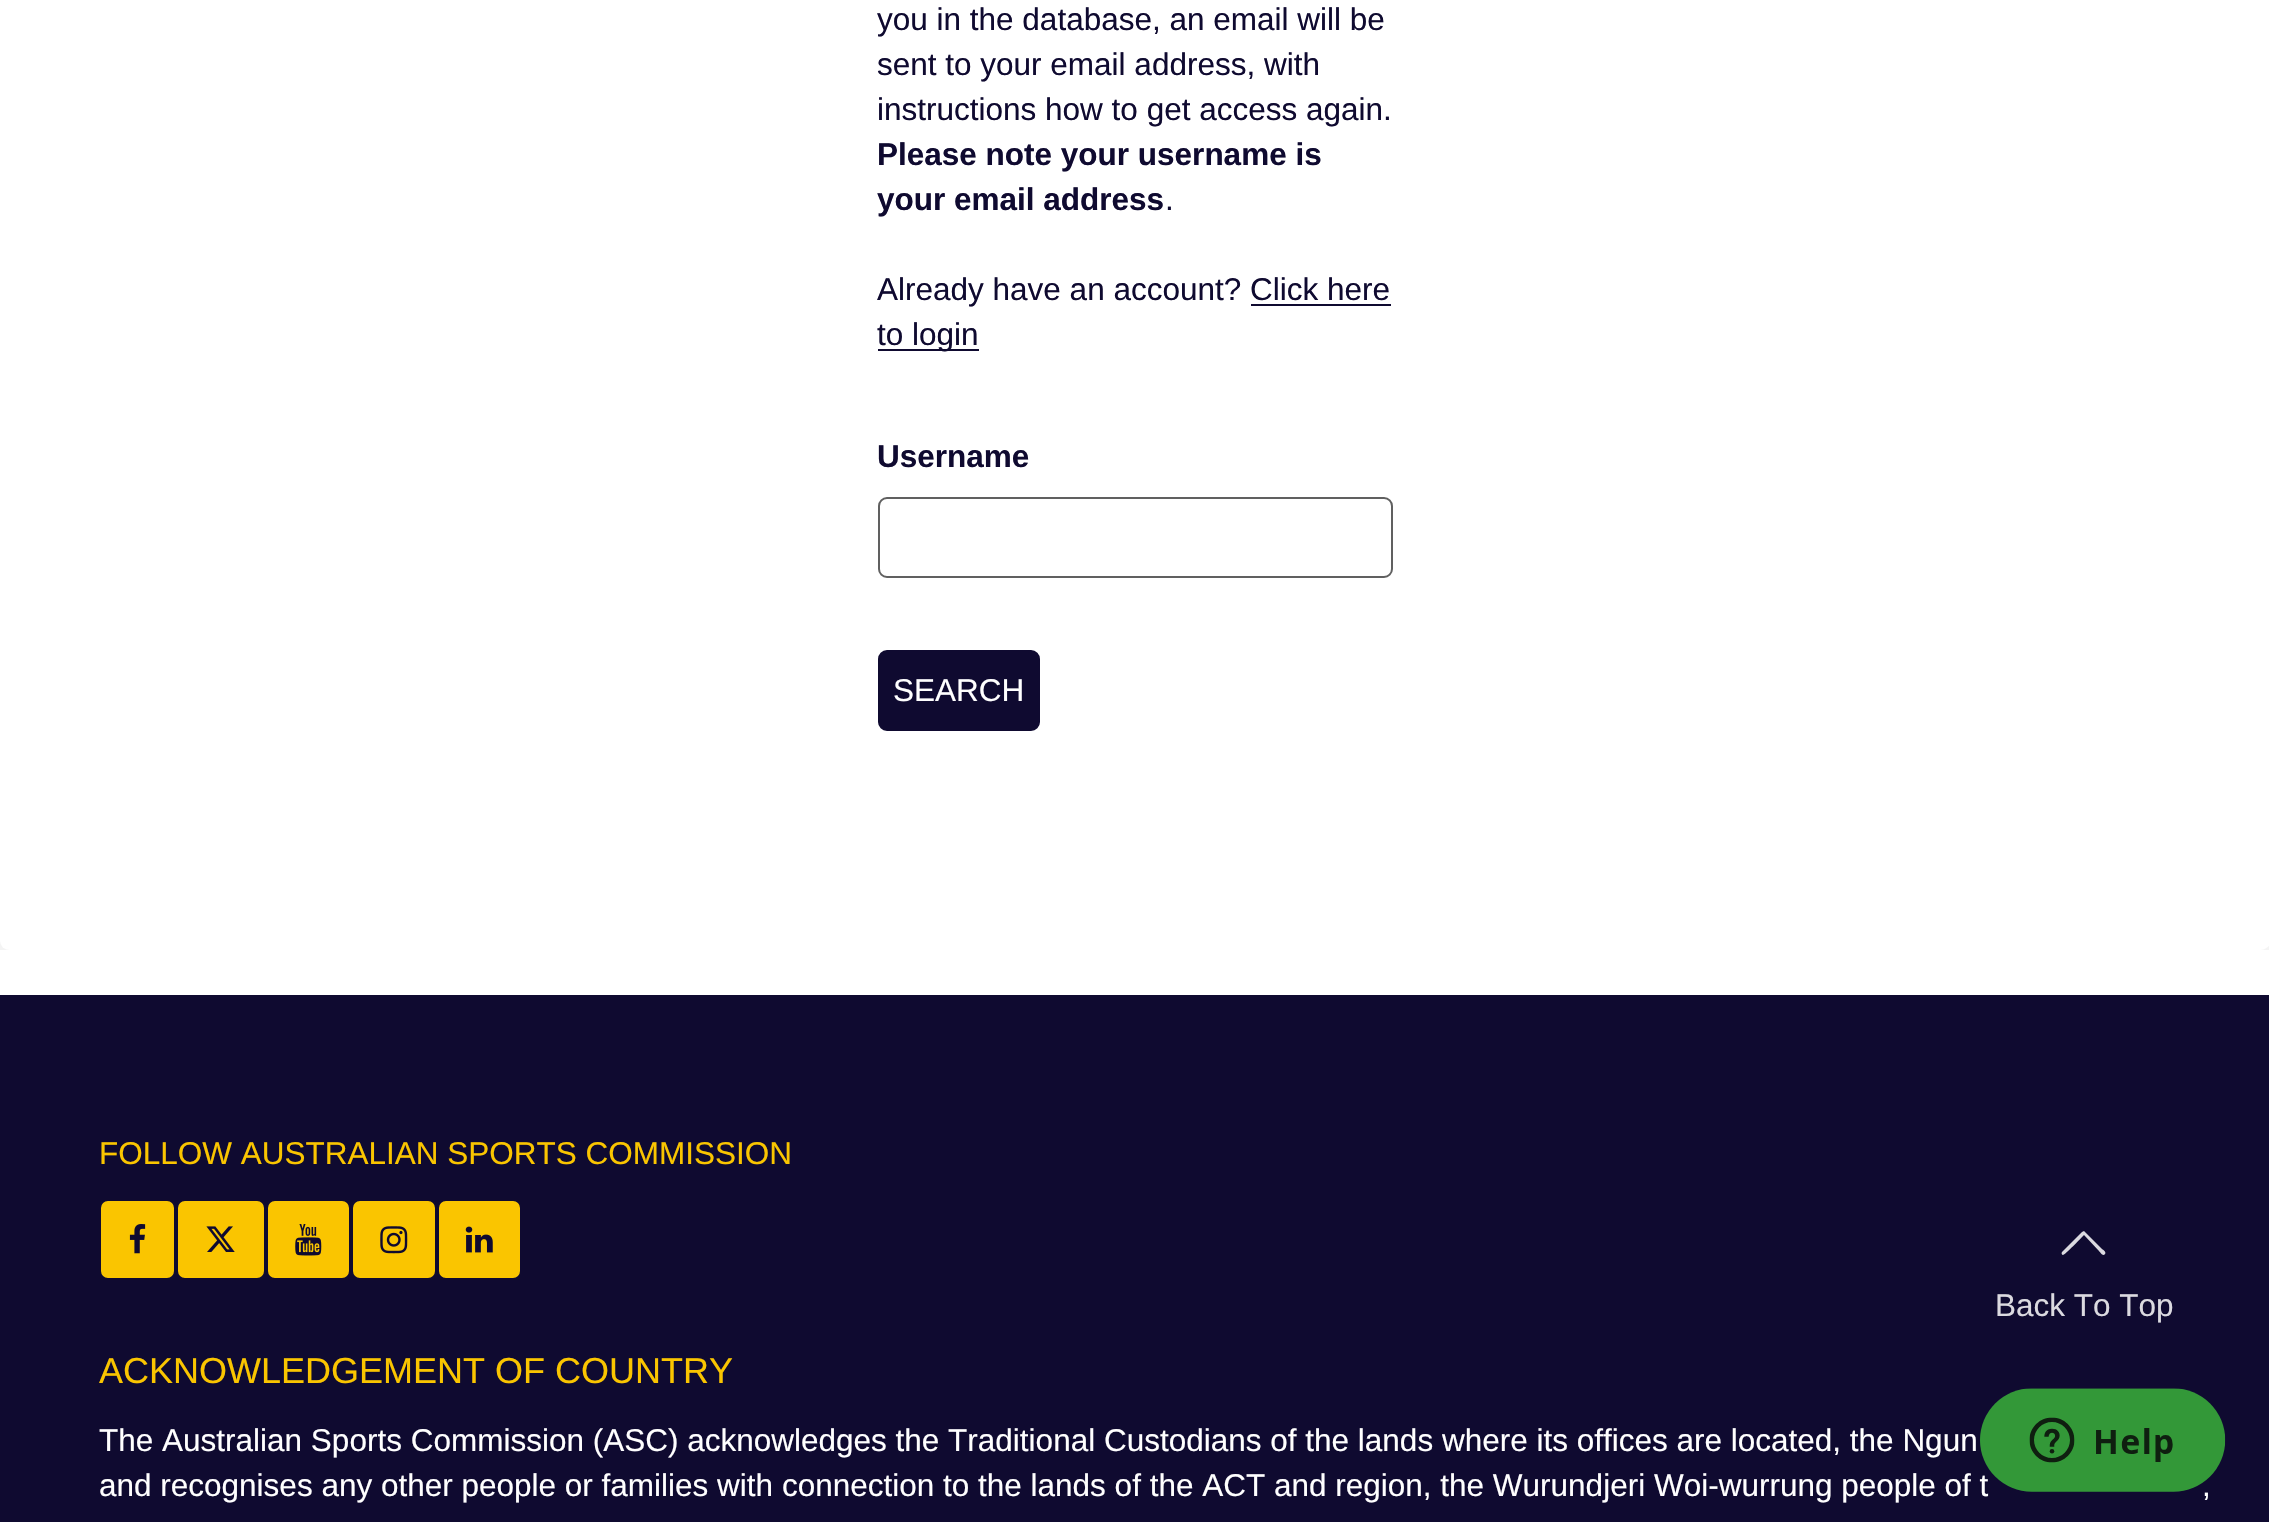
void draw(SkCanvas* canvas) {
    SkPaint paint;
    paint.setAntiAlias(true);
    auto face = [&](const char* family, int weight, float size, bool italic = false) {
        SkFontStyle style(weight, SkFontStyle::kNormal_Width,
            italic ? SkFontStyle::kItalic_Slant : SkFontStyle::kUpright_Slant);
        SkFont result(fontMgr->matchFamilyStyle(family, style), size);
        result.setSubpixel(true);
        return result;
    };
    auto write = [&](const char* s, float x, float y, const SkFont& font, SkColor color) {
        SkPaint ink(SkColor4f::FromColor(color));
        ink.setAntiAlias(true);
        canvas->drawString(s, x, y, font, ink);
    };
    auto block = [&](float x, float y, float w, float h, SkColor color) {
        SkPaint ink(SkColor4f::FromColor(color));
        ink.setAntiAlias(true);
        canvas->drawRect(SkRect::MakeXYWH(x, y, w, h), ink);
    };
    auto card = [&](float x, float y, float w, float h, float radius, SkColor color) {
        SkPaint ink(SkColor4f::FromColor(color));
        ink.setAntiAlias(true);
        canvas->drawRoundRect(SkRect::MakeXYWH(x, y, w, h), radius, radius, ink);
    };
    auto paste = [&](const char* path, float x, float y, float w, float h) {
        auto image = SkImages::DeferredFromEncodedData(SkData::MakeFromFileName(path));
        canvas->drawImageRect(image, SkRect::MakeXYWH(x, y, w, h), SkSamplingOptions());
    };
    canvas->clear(SK_ColorWHITE);
    block(0, 941, 2269, 9, SkColorSetRGB(244, 244, 244));
    card(0, -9, 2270, 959, 9, SK_ColorWHITE);
    auto kFont1 = face("Liberation Sans", 400, 31.5f);
    write("you in the database, an email will be", 877, 30, kFont1, SkColorSetRGB(15, 10, 48));
    write("sent to your email address, with", 877, 75, kFont1, SkColorSetRGB(15, 10, 48));
    write("instructions how to get access again.", 877, 120, kFont1, SkColorSetRGB(15, 10, 48));
    auto kFont2 = face("Liberation Sans", 700, 31.5f);
    write("Please note your username is", 877, 165, kFont2, SkColorSetRGB(15, 10, 48));
    write("your email address", 877, 210, kFont2, SkColorSetRGB(15, 10, 48));
    write(".", 1165, 210, kFont1, SkColorSetRGB(15, 10, 48));
    write("Already have an account? Click here", 877, 300, kFont1, SkColorSetRGB(15, 10, 48));
    block(878, 349, 101, 2, SkColorSetRGB(15, 10, 48));
    write("to login", 877, 345, kFont1, SkColorSetRGB(15, 10, 48));
    block(1251, 304, 140, 2, SkColorSetRGB(15, 10, 48));
    write("Username", 877, 467, kFont2, SkColorSetRGB(15, 10, 48));
    paint.setStyle(SkPaint::kStroke_Style);
    paint.setStrokeWidth(2);
    paint.setColor(SkColorSetRGB(96, 96, 96));
    canvas->drawRoundRect(SkRect::MakeXYWH(879, 498, 513, 79), 8, 8, paint);
    paint.setStyle(SkPaint::kFill_Style);
    paint.setColor(SkColorSetRGB(15, 10, 48));
    canvas->drawRoundRect(SkRect::MakeXYWH(879, 651, 160, 79), 8, 8, paint);
    paint.setStyle(SkPaint::kStroke_Style);
    canvas->drawRoundRect(SkRect::MakeXYWH(879, 651, 160, 79), 8, 8, paint);
    write("SEARCH", 893, 701, kFont1, SK_ColorWHITE);
    block(0, 995, 2269, 527, SkColorSetRGB(15, 10, 48));
    write("FOLLOW AUSTRALIAN SPORTS COMMISSION", 99, 1164, kFont1, SkColorSetRGB(250, 197, 0));
    paint.setStyle(SkPaint::kFill_Style);
    paint.setColor(SkColorSetRGB(250, 197, 0));
    canvas->drawRoundRect(SkRect::MakeXYWH(100, 1200, 75, 79), 8, 8, paint);
    paint.setStyle(SkPaint::kStroke_Style);
    paint.setColor(SkColorSetRGB(15, 10, 48));
    canvas->drawRoundRect(SkRect::MakeXYWH(100, 1200, 75, 79), 8, 8, paint);
    paste("pic1.png", 129, 1224, 17, 30);
    paint.setStyle(SkPaint::kFill_Style);
    paint.setColor(SkColorSetRGB(250, 197, 0));
    canvas->drawRoundRect(SkRect::MakeXYWH(177, 1200, 88, 79), 8, 8, paint);
    paint.setStyle(SkPaint::kStroke_Style);
    paint.setColor(SkColorSetRGB(15, 10, 48));
    canvas->drawRoundRect(SkRect::MakeXYWH(177, 1200, 88, 79), 8, 8, paint);
    paste("pic2.png", 206, 1226, 29, 26);
    paint.setStyle(SkPaint::kFill_Style);
    paint.setColor(SkColorSetRGB(250, 197, 0));
    canvas->drawRoundRect(SkRect::MakeXYWH(267, 1200, 83, 79), 8, 8, paint);
    paint.setStyle(SkPaint::kStroke_Style);
    paint.setColor(SkColorSetRGB(15, 10, 48));
    canvas->drawRoundRect(SkRect::MakeXYWH(267, 1200, 83, 79), 8, 8, paint);
    paste("pic3.png", 295, 1224, 27, 32);
    paint.setStyle(SkPaint::kFill_Style);
    paint.setColor(SkColorSetRGB(250, 197, 0));
    canvas->drawRoundRect(SkRect::MakeXYWH(352, 1200, 84, 79), 8, 8, paint);
    paint.setStyle(SkPaint::kStroke_Style);
    paint.setColor(SkColorSetRGB(15, 10, 48));
    canvas->drawRoundRect(SkRect::MakeXYWH(352, 1200, 84, 79), 8, 8, paint);
    paste("pic4.png", 380, 1226, 28, 28);
    paint.setStyle(SkPaint::kFill_Style);
    paint.setColor(SkColorSetRGB(250, 197, 0));
    canvas->drawRoundRect(SkRect::MakeXYWH(438, 1200, 83, 79), 8, 8, paint);
    paint.setStyle(SkPaint::kStroke_Style);
    paint.setColor(SkColorSetRGB(15, 10, 48));
    canvas->drawRoundRect(SkRect::MakeXYWH(438, 1200, 83, 79), 8, 8, paint);
    paste("pic5.png", 465, 1226, 28, 27);
    auto kFont3 = face("Liberation Sans", 400, 36);
    write("ACKNOWLEDGEMENT OF COUNTRY", 99, 1383, kFont3, SkColorSetRGB(250, 197, 0));
    write("The Australian Sports Commission (ASC) acknowledges the Traditional Custodians of the lands where its offices are located, the Ngun", 99, 1451, kFont1, SK_ColorWHITE);
    write("and recognises any other people or families with connection to the lands of the ACT and region, the Wurundjeri Woi-wurrung people of t", 99, 1496, kFont1, SK_ColorWHITE);
    write(",", 2202, 1496, kFont1, SK_ColorWHITE);
    paint.setStyle(SkPaint::kFill_Style);
    paint.setColor(SkColorSetRGB(219, 218, 224));
    canvas->drawPath(SkPathBuilder().moveTo(2082, 1232).lineTo(2084, 1231).lineTo(2102, 1249).cubicTo(2102, 1249, 2107, 1252, 2105, 1254).cubicTo(2103, 1257, 2100, 1252, 2099, 1251).lineTo(2084, 1235).cubicTo(2081, 1238, 2065, 1255, 2063, 1255).cubicTo(2062, 1255, 2061, 1253, 2062, 1252).close().detach(), paint);
    write("Back To Top", 1995, 1316, kFont1, SkColorSetRGB(219, 218, 224));
    paste("pic6.png", 1980, 1388, 246, 104);
}
